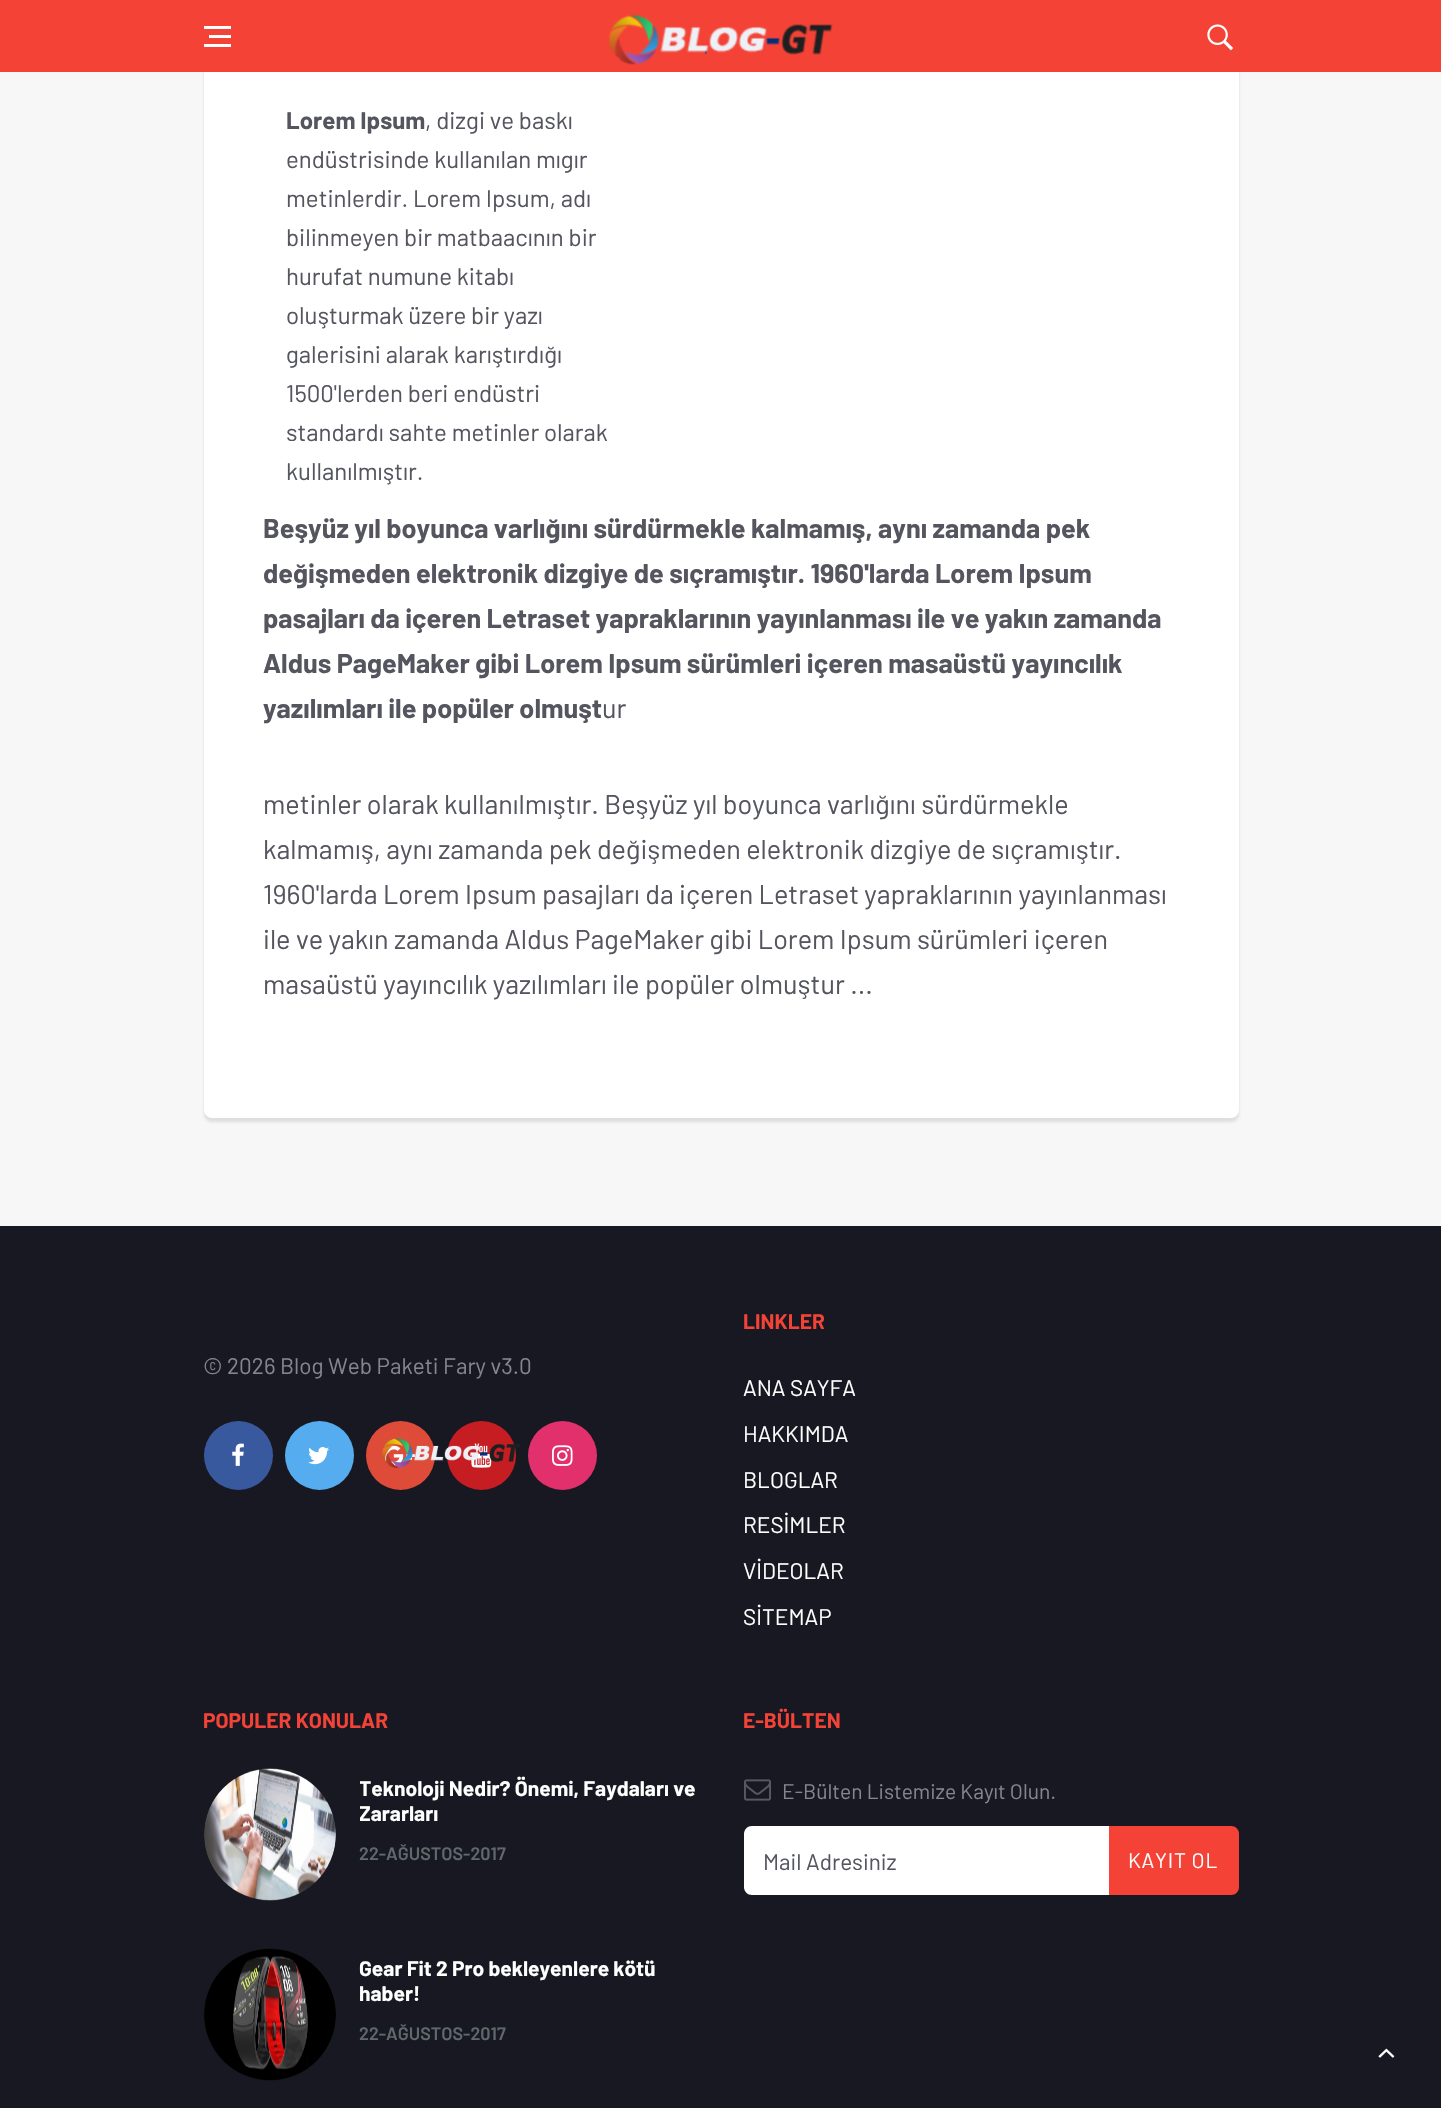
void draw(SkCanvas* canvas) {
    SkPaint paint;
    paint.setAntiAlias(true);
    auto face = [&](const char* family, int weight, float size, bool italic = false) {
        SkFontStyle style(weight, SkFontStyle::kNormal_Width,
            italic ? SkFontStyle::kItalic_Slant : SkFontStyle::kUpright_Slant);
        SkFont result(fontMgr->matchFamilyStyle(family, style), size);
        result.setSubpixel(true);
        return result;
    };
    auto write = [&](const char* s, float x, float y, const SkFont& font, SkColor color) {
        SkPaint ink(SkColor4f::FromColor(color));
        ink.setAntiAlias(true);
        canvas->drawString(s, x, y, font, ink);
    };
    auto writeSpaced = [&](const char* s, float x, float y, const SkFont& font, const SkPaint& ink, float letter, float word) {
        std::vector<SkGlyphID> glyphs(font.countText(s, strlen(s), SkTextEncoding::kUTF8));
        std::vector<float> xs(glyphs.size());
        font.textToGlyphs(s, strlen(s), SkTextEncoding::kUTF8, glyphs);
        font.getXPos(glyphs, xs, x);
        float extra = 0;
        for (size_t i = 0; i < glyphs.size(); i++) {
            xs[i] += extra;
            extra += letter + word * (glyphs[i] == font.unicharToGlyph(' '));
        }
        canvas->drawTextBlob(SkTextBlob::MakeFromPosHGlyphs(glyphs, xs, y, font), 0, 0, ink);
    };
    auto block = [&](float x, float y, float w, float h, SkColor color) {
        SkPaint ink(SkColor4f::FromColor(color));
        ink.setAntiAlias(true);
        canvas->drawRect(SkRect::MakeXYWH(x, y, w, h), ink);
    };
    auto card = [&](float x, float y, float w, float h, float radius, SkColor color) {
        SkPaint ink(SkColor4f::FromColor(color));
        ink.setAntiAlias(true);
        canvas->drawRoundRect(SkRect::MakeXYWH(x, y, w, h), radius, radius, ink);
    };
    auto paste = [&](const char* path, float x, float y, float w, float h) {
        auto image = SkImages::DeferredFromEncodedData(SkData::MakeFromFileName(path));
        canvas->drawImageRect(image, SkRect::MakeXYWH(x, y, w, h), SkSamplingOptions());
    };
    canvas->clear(SkColorSetRGB(247, 247, 247));
    paint.setColor(SkColorSetARGB(26, 0, 0, 0));
    paint.setMaskFilter(SkMaskFilter::MakeBlur(kNormal_SkBlurStyle, 1.5f));
    canvas->drawRoundRect(SkRect::MakeXYWH(204, -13, 1035, 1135), 8, 8, paint);
    paint.setMaskFilter(nullptr);
    card(204, -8, 1035, 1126, 8, SK_ColorWHITE);
    block(0, 0, 1441, 72, SkColorSetRGB(244, 67, 54));
    block(209, 35, 22, 3, SK_ColorWHITE);
    block(204, 26, 27, 3, SK_ColorWHITE);
    block(204, 44, 27, 3, SK_ColorWHITE);
    paste("pic1.png", 608, 14, 225, 51);
    paste("pic2.png", 1207, 24, 27, 27);
    auto kFont1 = face("Barlow", 700, 24);
    write("Lorem Ipsum", 286, 129, kFont1, SkColorSetRGB(84, 85, 94));
    auto kFont2 = face("Barlow", 400, 24);
    write(", dizgi ve baskı", 425, 129, kFont2, SkColorSetRGB(84, 85, 94));
    write("endüstrisinde kullanılan mıgır", 286, 168, kFont2, SkColorSetRGB(84, 85, 94));
    write("metinlerdir. Lorem Ipsum, adı", 286, 207, kFont2, SkColorSetRGB(84, 85, 94));
    write("bilinmeyen bir matbaacının bir", 286, 246, kFont2, SkColorSetRGB(84, 85, 94));
    write("hurufat numune kitabı", 286, 285, kFont2, SkColorSetRGB(84, 85, 94));
    write("oluşturmak üzere bir yazı", 286, 324, kFont2, SkColorSetRGB(84, 85, 94));
    write("galerisini alarak karıştırdığı", 286, 363, kFont2, SkColorSetRGB(84, 85, 94));
    write("1500'lerden beri endüstri", 286, 402, kFont2, SkColorSetRGB(84, 85, 94));
    write("standardı sahte metinler olarak", 286, 441, kFont2, SkColorSetRGB(84, 85, 94));
    write("kullanılmıştır.", 286, 480, kFont2, SkColorSetRGB(84, 85, 94));
    auto kFont3 = face("Barlow", 700, 27);
    write("Beşyüz yıl boyunca varlığını sürdürmekle kalmamış, aynı zamanda pek", 263, 538, kFont3, SkColorSetRGB(84, 85, 94));
    write("değişmeden elektronik dizgiye de sıçramıştır. 1960'larda Lorem Ipsum", 263, 583, kFont3, SkColorSetRGB(84, 85, 94));
    write("pasajları da içeren Letraset yapraklarının yayınlanması ile ve yakın zamanda", 263, 628, kFont3, SkColorSetRGB(84, 85, 94));
    write("Aldus PageMaker gibi Lorem Ipsum sürümleri içeren masaüstü yayıncılık", 263, 673, kFont3, SkColorSetRGB(84, 85, 94));
    write("yazılımları ile popüler olmuşt", 263, 718, kFont3, SkColorSetRGB(84, 85, 94));
    auto kFont4 = face("Barlow", 400, 27);
    write("ur", 602, 718, kFont4, SkColorSetRGB(84, 85, 94));
    write("metinler olarak kullanılmıştır. Beşyüz yıl boyunca varlığını sürdürmekle", 263, 814, kFont4, SkColorSetRGB(84, 85, 94));
    write("kalmamış, aynı zamanda pek değişmeden elektronik dizgiye de sıçramıştır.", 263, 859, kFont4, SkColorSetRGB(84, 85, 94));
    write("1960'larda Lorem Ipsum pasajları da içeren Letraset yapraklarının yayınlanması", 263, 904, kFont4, SkColorSetRGB(84, 85, 94));
    write("ile ve yakın zamanda Aldus PageMaker gibi Lorem Ipsum sürümleri içeren", 263, 949, kFont4, SkColorSetRGB(84, 85, 94));
    write("masaüstü yayıncılık yazılımları ile popüler olmuştur ...", 263, 994, kFont4, SkColorSetRGB(84, 85, 94));
    block(0, 1226, 1441, 882, SkColorSetRGB(23, 24, 33));
    auto kFont5 = face("Barlow", 400, 22.5f);
    write("© 2026 Blog Web Paketi Fary v3.0", 203, 1374, kFont5, SkColorSetRGB(131, 133, 143));
    paint.setColor(SkColorSetRGB(57, 89, 159));
    canvas->drawCircle(238.5f, 1455.5f, 34.5f, paint);
    paste("pic3.png", 232, 1443, 12, 23);
    paint.setColor(SkColorSetRGB(85, 172, 238));
    canvas->drawCircle(319.5f, 1455.5f, 34.5f, paint);
    paste("pic4.png", 308, 1447, 21, 18);
    paint.setColor(SkColorSetRGB(222, 75, 57));
    canvas->drawCircle(400.5f, 1455.5f, 34.5f, paint);
    paste("pic5.png", 384, 1445, 31, 21);
    paint.setColor(SkColorSetRGB(198, 29, 35));
    canvas->drawCircle(481.5f, 1455.5f, 34.5f, paint);
    paste("pic6.png", 471, 1443, 21, 25);
    paint.setColor(SkColorSetRGB(225, 48, 108));
    canvas->drawCircle(562.5f, 1455.5f, 34.5f, paint);
    paste("pic7.png", 552, 1445, 21, 21);
    paste("pic8.png", 382, 1438, 138, 30);
    auto kFont6 = face("Barlow", 700, 21);
    write("LINKLER", 743, 1329, kFont6, SkColorSetRGB(244, 67, 54));
    write("ANA SAYFA", 743, 1396, kFont5, SK_ColorWHITE);
    write("HAKKIMDA", 743, 1442, kFont5, SK_ColorWHITE);
    write("BLOGLAR", 743, 1488, kFont5, SK_ColorWHITE);
    write("RESİMLER", 743, 1533, kFont5, SK_ColorWHITE);
    write("VİDEOLAR", 743, 1579, kFont5, SK_ColorWHITE);
    write("SİTEMAP", 743, 1625, kFont5, SK_ColorWHITE);
    write("POPULER KONULAR", 203, 1728, kFont6, SkColorSetRGB(244, 67, 54));
    paste("pic9.png", 204, 1768, 132, 133);
    canvas->save();
    canvas->clipRect(SkRect::MakeXYWH(360, 1769, 339, 100));
    write("Teknoloji Nedir? Önemi, Faydaları ve", 359, 1796, kFont6, SK_ColorWHITE);
    write("Zararları", 359, 1821, kFont6, SK_ColorWHITE);
    canvas->restore();
    auto kFont7 = face("Barlow", 600, 18);
    write("22-AĞUSTOS-2017", 359, 1860, kFont7, SkColorSetRGB(95, 104, 107));
    paste("pic10.png", 204, 1948, 132, 133);
    write("Gear Fit 2 Pro bekleyenlere kötü", 359, 1976, kFont6, SK_ColorWHITE);
    write("haber!", 359, 2001, kFont6, SK_ColorWHITE);
    write("22-AĞUSTOS-2017", 359, 2040, kFont7, SkColorSetRGB(95, 104, 107));
    write("E-BÜLTEN", 743, 1728, kFont6, SkColorSetRGB(244, 67, 54));
    paste("pic11.png", 744, 1779, 27, 22);
    auto kFont8 = face("Barlow", 400, 21);
    write("E-Bülten Listemize Kayıt Olun.", 782, 1799, kFont8, SkColorSetRGB(131, 133, 143));
    paint.setColor(SK_ColorWHITE);
    canvas->drawPath(SkPathBuilder().moveTo(752, 1826).lineTo(1109, 1826).lineTo(1109, 1895).lineTo(752, 1895).cubicTo(747.5f, 1895, 744, 1891.5f, 744, 1887).lineTo(744, 1834).cubicTo(744, 1829.5f, 747.5f, 1826, 752, 1826).close().detach(), paint);
    write("Mail Adresiniz", 763, 1870, kFont5, SkColorSetRGB(84, 85, 94));
    paint.setColor(SkColorSetRGB(244, 67, 54));
    canvas->drawPath(SkPathBuilder().moveTo(1109, 1826).lineTo(1231, 1826).cubicTo(1235.5f, 1826, 1239, 1829.5f, 1239, 1834).lineTo(1239, 1887).cubicTo(1239, 1891.5f, 1235.5f, 1895, 1231, 1895).lineTo(1109, 1895).close().detach(), paint);
    paint.setColor(SK_ColorWHITE);
    writeSpaced("KAYIT OL", 1128, 1868, kFont8, paint, 0.75f, 0);
    paste("pic12.png", 1378, 2048, 17, 10);
}
